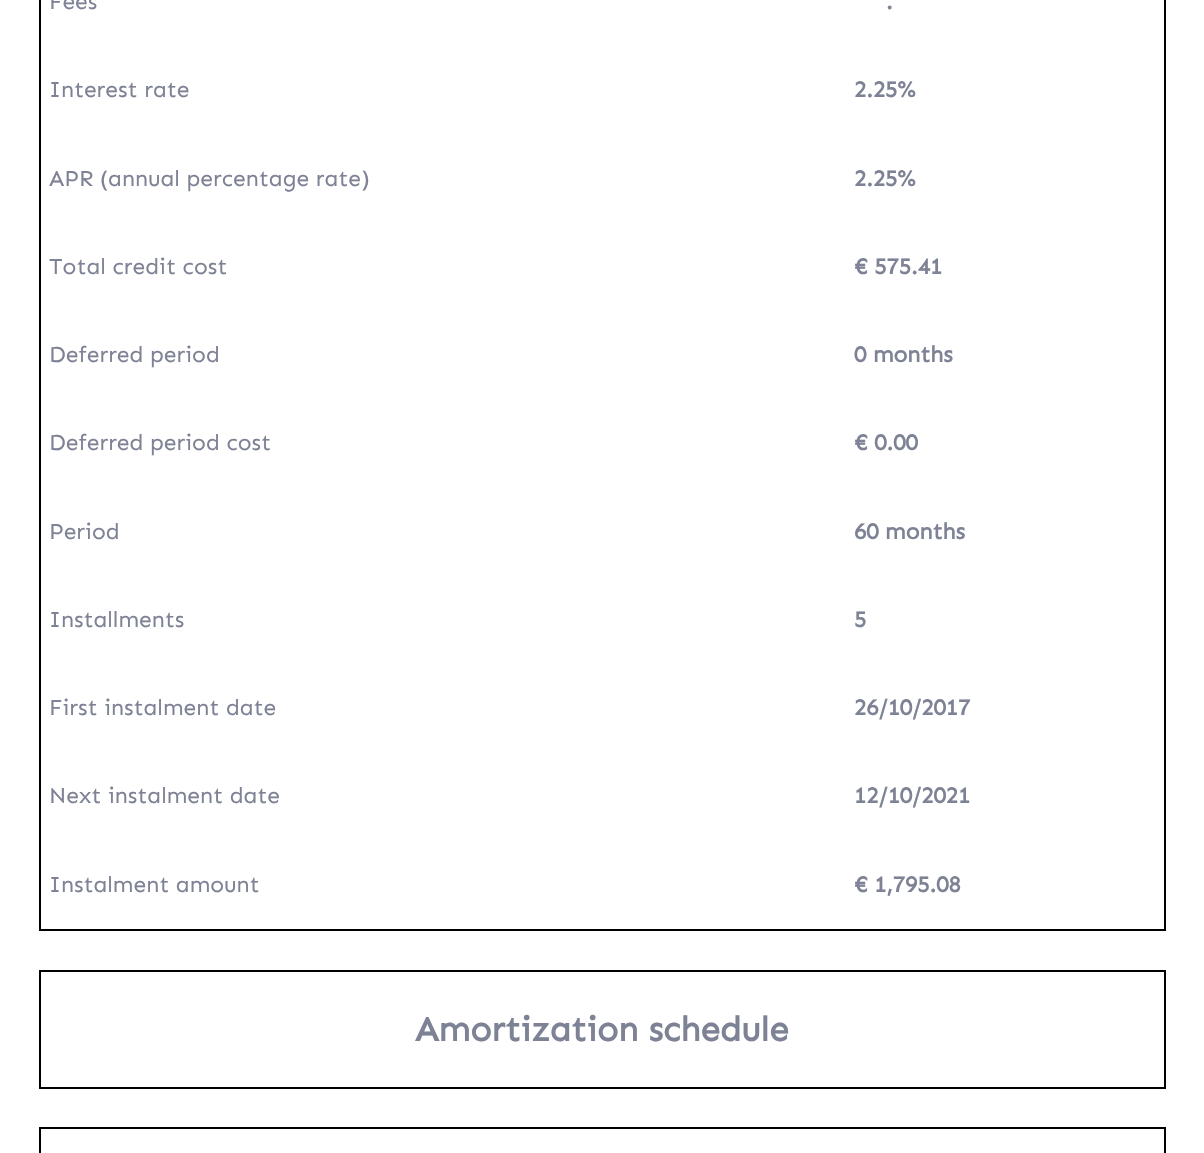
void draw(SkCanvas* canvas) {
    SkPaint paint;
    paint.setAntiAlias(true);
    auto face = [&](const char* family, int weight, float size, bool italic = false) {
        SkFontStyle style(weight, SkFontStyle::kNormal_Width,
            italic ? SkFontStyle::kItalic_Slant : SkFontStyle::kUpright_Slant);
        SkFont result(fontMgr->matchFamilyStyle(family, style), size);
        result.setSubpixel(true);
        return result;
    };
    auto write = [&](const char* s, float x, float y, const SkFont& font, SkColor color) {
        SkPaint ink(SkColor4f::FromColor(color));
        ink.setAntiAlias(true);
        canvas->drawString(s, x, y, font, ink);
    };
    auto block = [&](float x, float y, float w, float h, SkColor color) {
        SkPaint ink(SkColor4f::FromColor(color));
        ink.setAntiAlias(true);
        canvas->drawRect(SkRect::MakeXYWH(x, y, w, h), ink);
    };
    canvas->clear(SK_ColorWHITE);
    block(1164, 0, 2, 931, SK_ColorBLACK);
    block(39, 929, 1127, 2, SK_ColorBLACK);
    block(39, 0, 2, 931, SK_ColorBLACK);
    auto kFont1 = face("Sen", 400, 22.75f);
    write("Fees", 49, 9, kFont1, SkColorSetRGB(125, 130, 149));
    auto kFont2 = face("Sen", 700, 22.75f);
    write(".", 886, 9, kFont2, SkColorSetRGB(125, 130, 149));
    write("Interest rate", 49, 97, kFont1, SkColorSetRGB(125, 130, 149));
    write("2.25%", 854, 97, kFont2, SkColorSetRGB(125, 130, 149));
    write("APR (annual percentage rate)", 49, 186, kFont1, SkColorSetRGB(125, 130, 149));
    write("2.25%", 854, 186, kFont2, SkColorSetRGB(125, 130, 149));
    write("Total credit cost", 49, 274, kFont1, SkColorSetRGB(125, 130, 149));
    write("€ 575.41", 854, 274, kFont2, SkColorSetRGB(125, 130, 149));
    write("Deferred period", 49, 362, kFont1, SkColorSetRGB(125, 130, 149));
    write("0 months", 854, 362, kFont2, SkColorSetRGB(125, 130, 149));
    write("Deferred period cost", 49, 450, kFont1, SkColorSetRGB(125, 130, 149));
    write("€ 0.00", 854, 450, kFont2, SkColorSetRGB(125, 130, 149));
    write("Period", 49, 539, kFont1, SkColorSetRGB(125, 130, 149));
    write("60 months", 854, 539, kFont2, SkColorSetRGB(125, 130, 149));
    write("Installments", 49, 627, kFont1, SkColorSetRGB(125, 130, 149));
    write("5", 854, 627, kFont2, SkColorSetRGB(125, 130, 149));
    write("First instalment date", 49, 715, kFont1, SkColorSetRGB(125, 130, 149));
    write("26/10/2017", 854, 715, kFont2, SkColorSetRGB(125, 130, 149));
    write("Next instalment date", 49, 803, kFont1, SkColorSetRGB(125, 130, 149));
    write("12/10/2021", 854, 803, kFont2, SkColorSetRGB(125, 130, 149));
    write("Instalment amount", 49, 892, kFont1, SkColorSetRGB(125, 130, 149));
    write("€ 1,795.08", 854, 892, kFont2, SkColorSetRGB(125, 130, 149));
    paint.setStyle(SkPaint::kStroke_Style);
    paint.setStrokeWidth(2);
    paint.setColor(SK_ColorBLACK);
    canvas->drawRect(SkRect::MakeXYWH(40, 971, 1125, 117), paint);
    auto kFont3 = face("Sen", 700, 35);
    write("Amortization schedule", 415, 1041, kFont3, SkColorSetRGB(125, 130, 149));
    block(39, 1127, 1127, 2, SK_ColorBLACK);
    block(1164, 1127, 2, 26, SK_ColorBLACK);
    block(39, 1127, 2, 26, SK_ColorBLACK);
}
